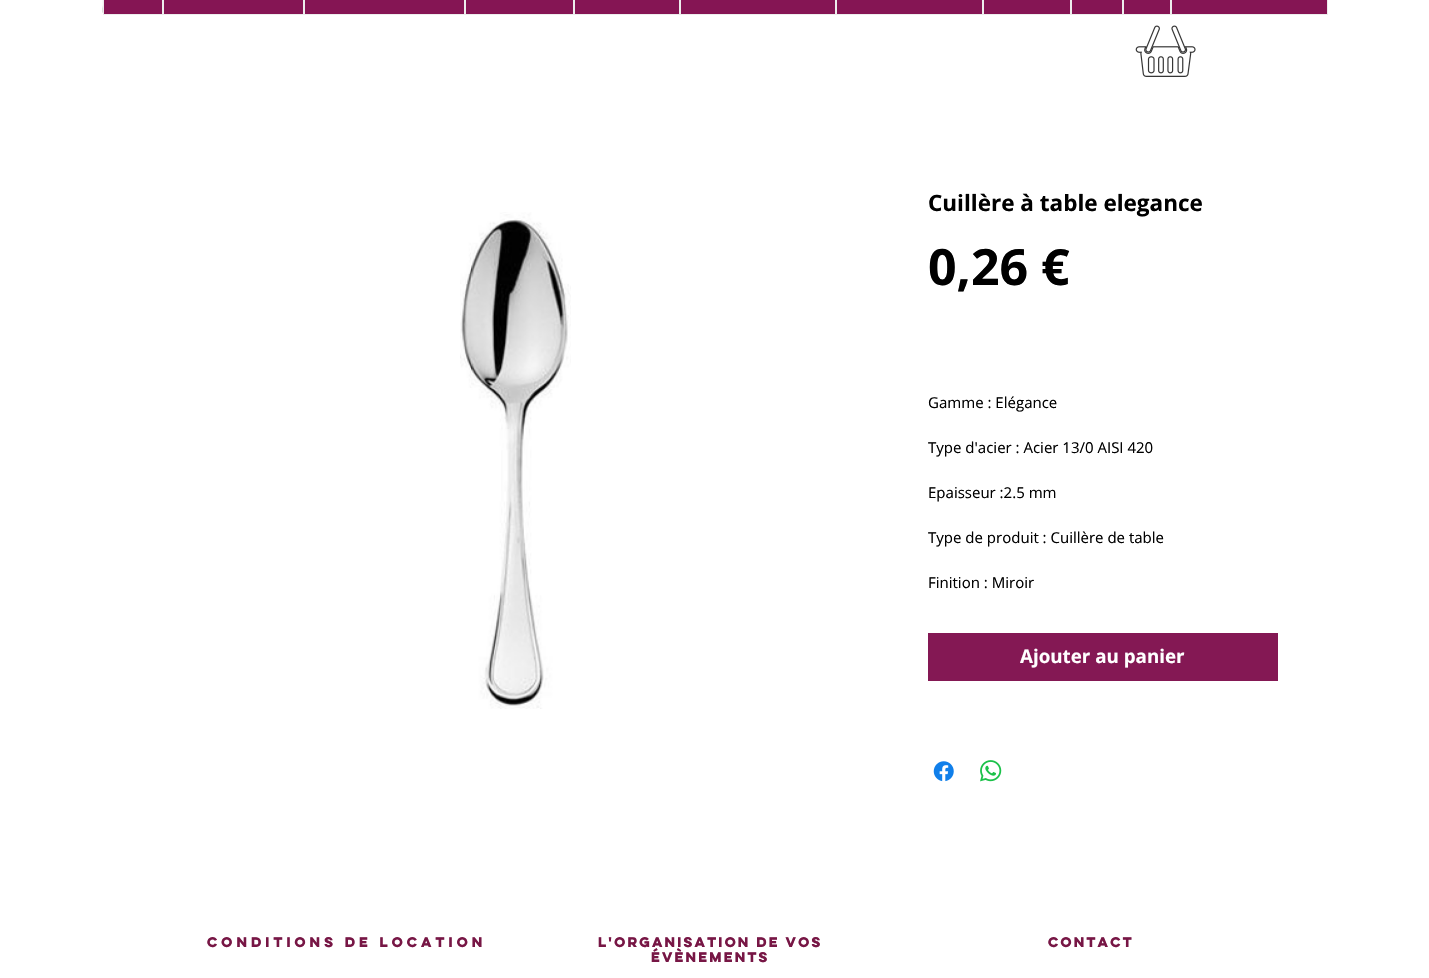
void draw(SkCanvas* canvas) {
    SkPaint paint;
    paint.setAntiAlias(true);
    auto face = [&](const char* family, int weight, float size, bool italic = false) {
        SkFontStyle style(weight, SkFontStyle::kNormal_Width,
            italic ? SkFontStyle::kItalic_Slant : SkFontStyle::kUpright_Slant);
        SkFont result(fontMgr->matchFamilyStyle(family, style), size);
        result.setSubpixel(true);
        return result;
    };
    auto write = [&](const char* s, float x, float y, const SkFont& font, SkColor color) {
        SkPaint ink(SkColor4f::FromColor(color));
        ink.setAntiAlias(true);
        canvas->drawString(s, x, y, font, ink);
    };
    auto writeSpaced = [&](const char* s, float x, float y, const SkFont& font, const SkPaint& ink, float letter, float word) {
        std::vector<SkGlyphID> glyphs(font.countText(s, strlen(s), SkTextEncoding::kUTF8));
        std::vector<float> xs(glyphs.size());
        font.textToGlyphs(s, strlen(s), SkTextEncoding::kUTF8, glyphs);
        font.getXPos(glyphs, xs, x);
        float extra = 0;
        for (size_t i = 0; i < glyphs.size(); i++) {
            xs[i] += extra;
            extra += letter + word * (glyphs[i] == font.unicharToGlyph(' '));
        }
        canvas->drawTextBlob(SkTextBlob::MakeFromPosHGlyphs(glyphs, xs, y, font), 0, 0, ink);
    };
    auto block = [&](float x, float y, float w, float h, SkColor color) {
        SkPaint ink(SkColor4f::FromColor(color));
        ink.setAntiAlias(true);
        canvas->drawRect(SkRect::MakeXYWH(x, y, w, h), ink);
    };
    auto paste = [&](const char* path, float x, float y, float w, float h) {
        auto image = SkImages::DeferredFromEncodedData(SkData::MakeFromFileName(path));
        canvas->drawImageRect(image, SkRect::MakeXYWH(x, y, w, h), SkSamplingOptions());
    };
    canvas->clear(SK_ColorWHITE);
    paste("pic1.png", 102, 0, 1, 13);
    paint.setColor(SkColorSetRGB(133, 21, 84));
    canvas->drawRect(SkRect::MakeXYWH(103.5f, -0.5f, 59, 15), paint);
    paint.setStyle(SkPaint::kStroke_Style);
    paint.setStrokeWidth(1);
    paint.setColor(SkColorSetRGB(237, 237, 237));
    canvas->drawRect(SkRect::MakeXYWH(103.5f, -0.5f, 59, 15), paint);
    paint.setStyle(SkPaint::kFill_Style);
    paint.setColor(SkColorSetRGB(133, 21, 84));
    canvas->drawRect(SkRect::MakeXYWH(163.5f, -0.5f, 140, 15), paint);
    paint.setStyle(SkPaint::kStroke_Style);
    paint.setColor(SkColorSetRGB(237, 237, 237));
    canvas->drawRect(SkRect::MakeXYWH(163.5f, -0.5f, 140, 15), paint);
    paint.setStyle(SkPaint::kFill_Style);
    paint.setColor(SkColorSetRGB(133, 21, 84));
    canvas->drawRect(SkRect::MakeXYWH(304.5f, -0.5f, 160, 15), paint);
    paint.setStyle(SkPaint::kStroke_Style);
    paint.setColor(SkColorSetRGB(237, 237, 237));
    canvas->drawRect(SkRect::MakeXYWH(304.5f, -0.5f, 160, 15), paint);
    paint.setStyle(SkPaint::kFill_Style);
    paint.setColor(SkColorSetRGB(133, 21, 84));
    canvas->drawRect(SkRect::MakeXYWH(465.5f, -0.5f, 108, 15), paint);
    paint.setStyle(SkPaint::kStroke_Style);
    paint.setColor(SkColorSetRGB(237, 237, 237));
    canvas->drawRect(SkRect::MakeXYWH(465.5f, -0.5f, 108, 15), paint);
    paint.setStyle(SkPaint::kFill_Style);
    paint.setColor(SkColorSetRGB(133, 21, 84));
    canvas->drawRect(SkRect::MakeXYWH(574.5f, -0.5f, 105, 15), paint);
    paint.setStyle(SkPaint::kStroke_Style);
    paint.setColor(SkColorSetRGB(237, 237, 237));
    canvas->drawRect(SkRect::MakeXYWH(574.5f, -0.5f, 105, 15), paint);
    paint.setStyle(SkPaint::kFill_Style);
    paint.setColor(SkColorSetRGB(133, 21, 84));
    canvas->drawRect(SkRect::MakeXYWH(680.5f, -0.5f, 155, 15), paint);
    paint.setStyle(SkPaint::kStroke_Style);
    paint.setColor(SkColorSetRGB(237, 237, 237));
    canvas->drawRect(SkRect::MakeXYWH(680.5f, -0.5f, 155, 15), paint);
    paint.setStyle(SkPaint::kFill_Style);
    paint.setColor(SkColorSetRGB(133, 21, 84));
    canvas->drawRect(SkRect::MakeXYWH(836.5f, -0.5f, 146, 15), paint);
    paint.setStyle(SkPaint::kStroke_Style);
    paint.setColor(SkColorSetRGB(237, 237, 237));
    canvas->drawRect(SkRect::MakeXYWH(836.5f, -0.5f, 146, 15), paint);
    paint.setStyle(SkPaint::kFill_Style);
    paint.setColor(SkColorSetRGB(133, 21, 84));
    canvas->drawRect(SkRect::MakeXYWH(983.5f, -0.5f, 87, 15), paint);
    paint.setStyle(SkPaint::kStroke_Style);
    paint.setColor(SkColorSetRGB(237, 237, 237));
    canvas->drawRect(SkRect::MakeXYWH(983.5f, -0.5f, 87, 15), paint);
    paint.setStyle(SkPaint::kFill_Style);
    paint.setColor(SkColorSetRGB(133, 21, 84));
    canvas->drawRect(SkRect::MakeXYWH(1071.5f, -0.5f, 51, 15), paint);
    paint.setStyle(SkPaint::kStroke_Style);
    paint.setColor(SkColorSetRGB(237, 237, 237));
    canvas->drawRect(SkRect::MakeXYWH(1071.5f, -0.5f, 51, 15), paint);
    paint.setStyle(SkPaint::kFill_Style);
    paint.setColor(SkColorSetRGB(133, 21, 84));
    canvas->drawRect(SkRect::MakeXYWH(1123.5f, -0.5f, 47, 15), paint);
    paint.setStyle(SkPaint::kStroke_Style);
    paint.setColor(SkColorSetRGB(237, 237, 237));
    canvas->drawRect(SkRect::MakeXYWH(1123.5f, -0.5f, 47, 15), paint);
    paint.setStyle(SkPaint::kFill_Style);
    paint.setColor(SkColorSetRGB(133, 21, 84));
    canvas->drawRect(SkRect::MakeXYWH(1171.5f, -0.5f, 156, 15), paint);
    paint.setStyle(SkPaint::kStroke_Style);
    paint.setColor(SkColorSetRGB(237, 237, 237));
    canvas->drawRect(SkRect::MakeXYWH(1171.5f, -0.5f, 156, 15), paint);
    paste("pic2.png", 1135, 25, 61, 52);
    paste("pic3.png", 460, 212, 111, 497);
    auto kFont1 = face("Open Sans", 700, 22.5f);
    write("Cuillère à table elegance", 928, 211, kFont1, SK_ColorBLACK);
    auto kFont2 = face("Open Sans", 700, 50);
    write("0,26 €", 928, 285, kFont2, SK_ColorBLACK);
    auto kFont3 = face("Open Sans", 400, 15);
    write("Gamme : Elégance", 928, 408, kFont3, SK_ColorBLACK);
    write("Type d'acier : Acier 13/0 AISI 420", 928, 453, kFont3, SK_ColorBLACK);
    write("Epaisseur :2.5 mm", 928, 498, kFont3, SK_ColorBLACK);
    write("Type de produit : Cuillère de table", 928, 543, kFont3, SK_ColorBLACK);
    write("Finition : Miroir", 928, 588, kFont3, SK_ColorBLACK);
    block(928, 633, 350, 48, SkColorSetRGB(132, 24, 84));
    auto kFont4 = face("Open Sans", 700, 18.75f);
    write("Ajouter au panier", 1020, 663, kFont4, SK_ColorWHITE);
    paste("pic4.png", 933, 761, 21, 21);
    paste("pic5.png", 980, 760, 22, 22);
    auto kFont5 = face("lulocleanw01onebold", 700, 12.5f);
    paint.setStyle(SkPaint::kFill_Style);
    paint.setColor(SkColorSetRGB(119, 22, 69));
    writeSpaced("Conditions de location", 207, 947, kFont5, paint, 1.25f, 0);
    writeSpaced("l'organisation de vos", 598, 947, kFont5, paint, -0.6f, 0);
    writeSpaced("évènements", 651, 962, kFont5, paint, -0.6f, 0);
    writeSpaced("contact", 1048, 947, kFont5, paint, -0.6f, 0);
}
